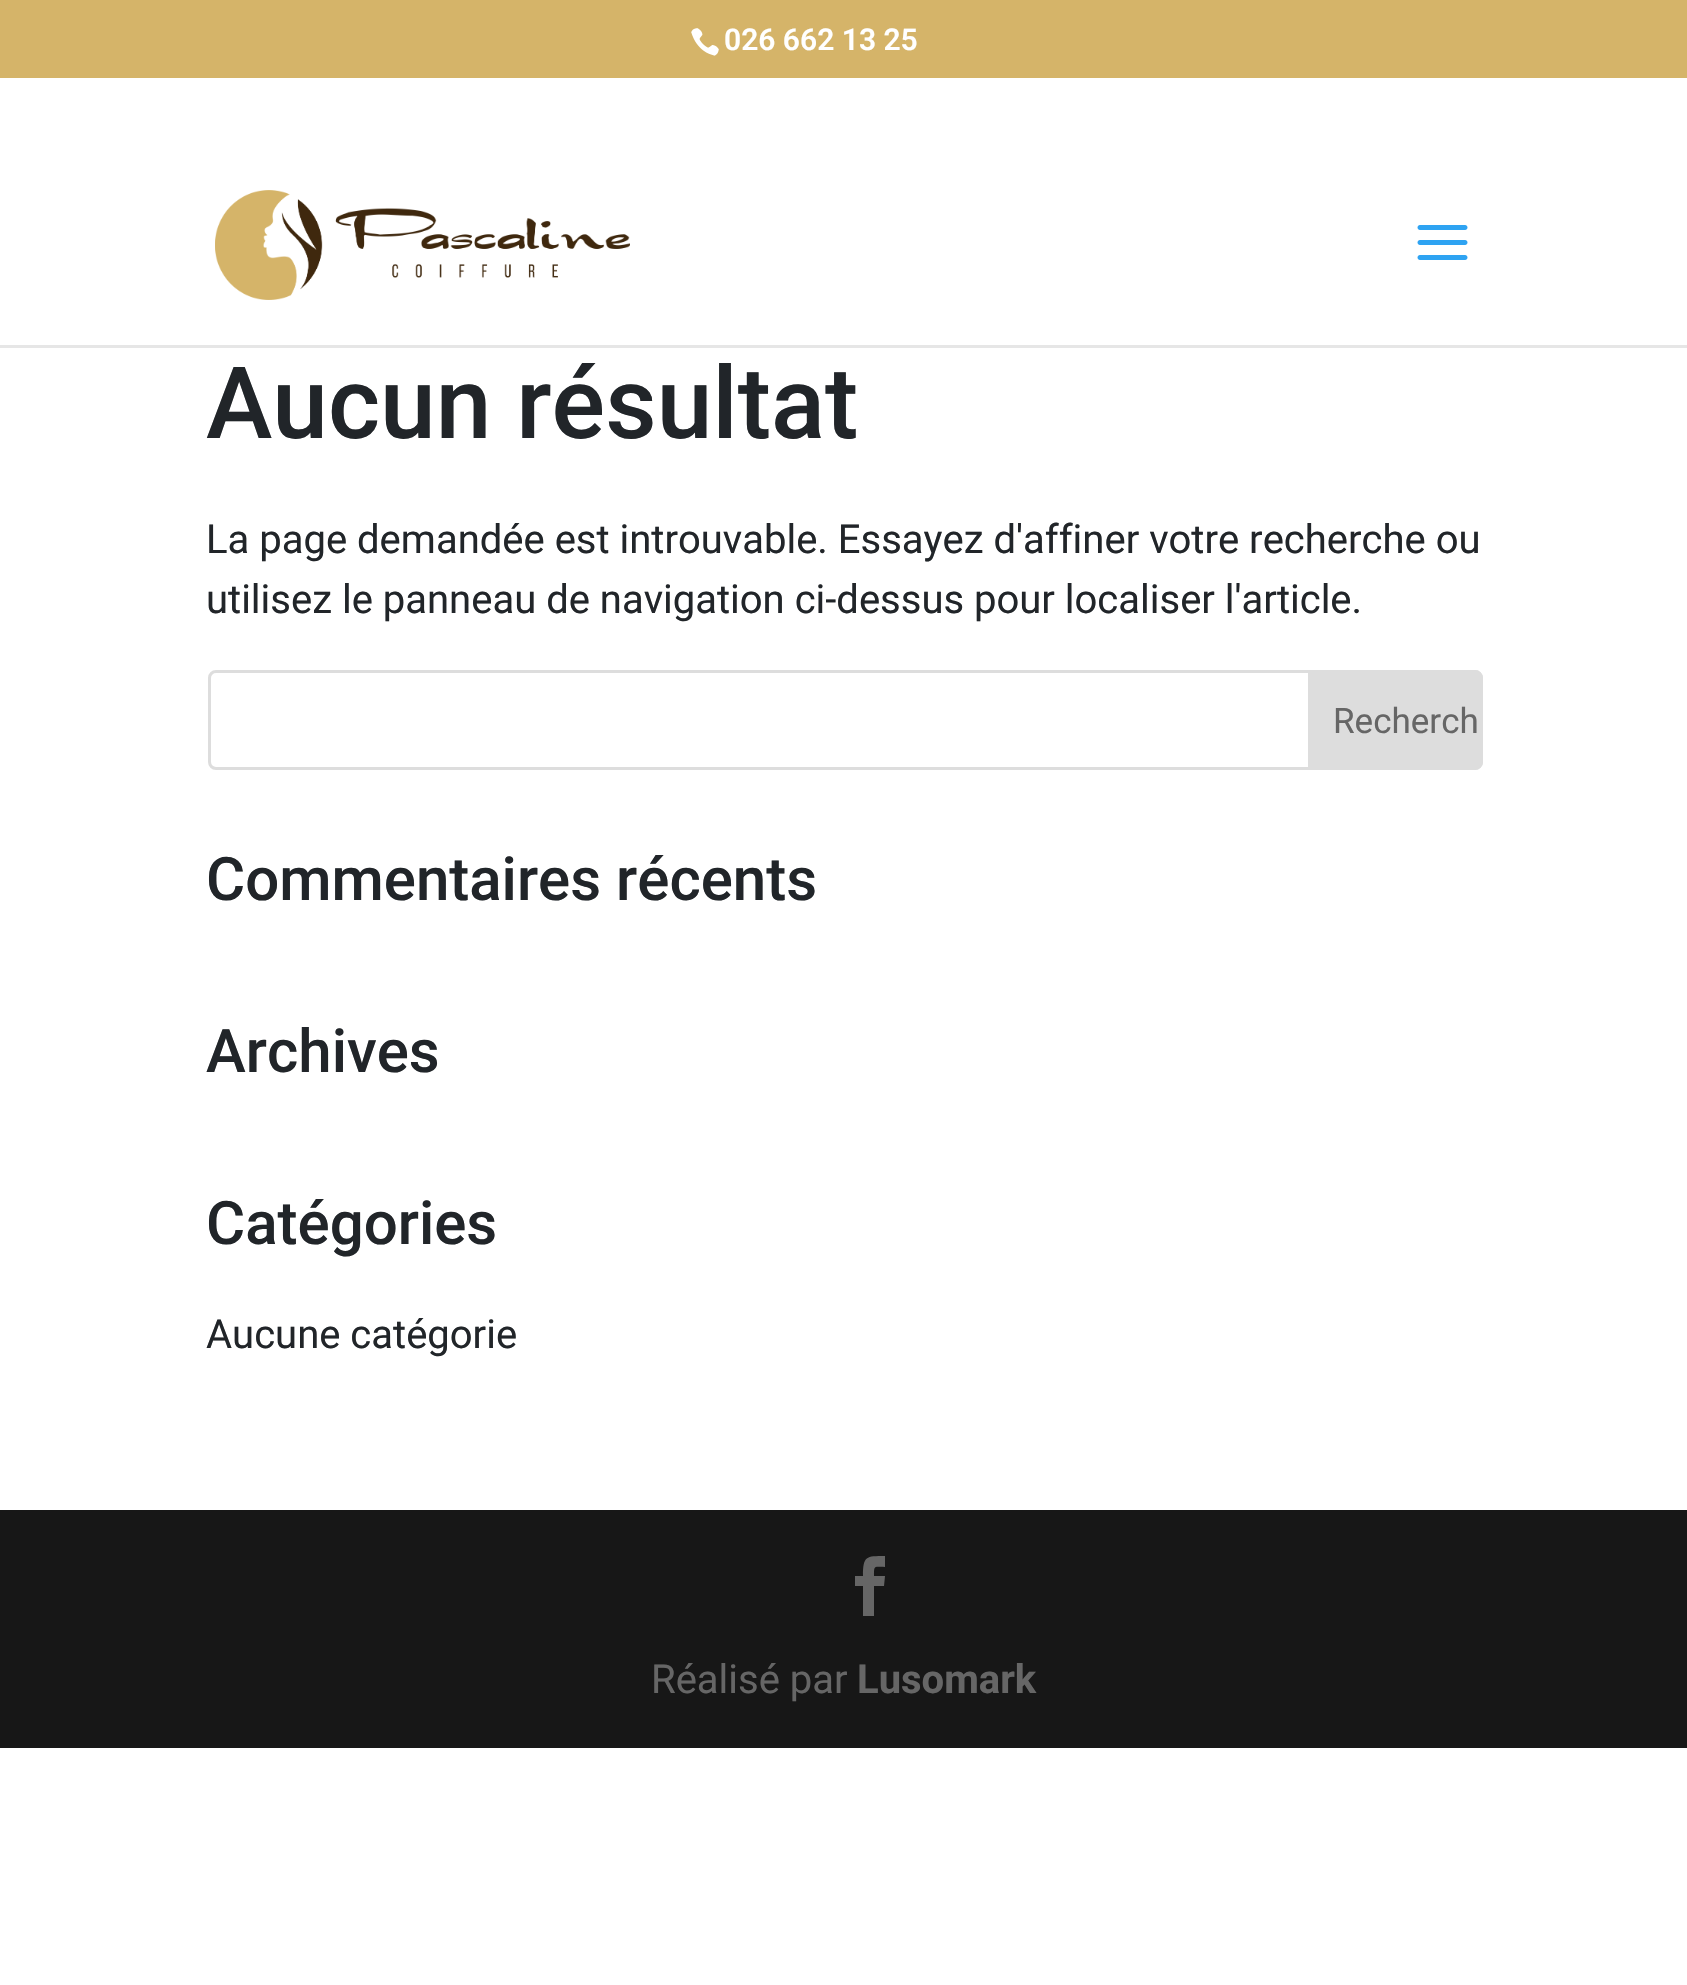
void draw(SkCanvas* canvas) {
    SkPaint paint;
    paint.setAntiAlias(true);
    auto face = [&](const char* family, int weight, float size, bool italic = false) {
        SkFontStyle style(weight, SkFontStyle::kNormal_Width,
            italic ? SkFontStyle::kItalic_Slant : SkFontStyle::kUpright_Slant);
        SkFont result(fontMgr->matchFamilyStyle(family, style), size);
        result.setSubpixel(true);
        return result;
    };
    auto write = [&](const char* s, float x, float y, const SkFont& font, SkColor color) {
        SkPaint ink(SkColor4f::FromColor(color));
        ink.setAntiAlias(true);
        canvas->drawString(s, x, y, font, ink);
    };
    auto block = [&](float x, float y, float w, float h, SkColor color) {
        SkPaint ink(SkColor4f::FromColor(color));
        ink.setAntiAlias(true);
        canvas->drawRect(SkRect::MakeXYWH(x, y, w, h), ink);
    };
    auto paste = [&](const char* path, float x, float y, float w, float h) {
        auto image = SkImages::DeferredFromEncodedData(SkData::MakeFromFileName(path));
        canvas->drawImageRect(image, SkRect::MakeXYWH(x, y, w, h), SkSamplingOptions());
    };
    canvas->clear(SK_ColorWHITE);
    block(0, 0, 1687, 78, SkColorSetRGB(213, 180, 105));
    paste("pic1.png", 691, 28, 28, 28);
    auto kFont1 = face("Roboto", 600, 30);
    write("026 662 13 25", 724, 50, kFont1, SK_ColorWHITE);
    paint.setColor(SkColorSetRGB(230, 230, 230));
    canvas->drawPath(SkPathBuilder().moveTo(0, 345).lineTo(0, 348).lineTo(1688, 348).lineTo(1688, 148).lineTo(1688, 345).close().detach(), paint);
    paste("pic2.png", 215, 190, 415, 110);
    paste("pic3.png", 1417, 225, 51, 35);
    auto kFont2 = face("Roboto", 500, 100);
    write("Aucun résultat", 206, 438, kFont2, SkColorSetRGB(33, 37, 41));
    auto kFont3 = face("Roboto", 400, 40);
    write("La page demandée est introuvable. Essayez d'affiner votre recherche ou", 206, 553, kFont3, SkColorSetRGB(33, 37, 41));
    write("utilisez le panneau de navigation ci-dessus pour localiser l'article.", 206, 613, kFont3, SkColorSetRGB(33, 37, 41));
    paint.setStyle(SkPaint::kStroke_Style);
    paint.setStrokeWidth(3);
    paint.setColor(SkColorSetRGB(221, 221, 221));
    canvas->drawRoundRect(SkRect::MakeXYWH(209.5f, 671.5f, 1272, 97), 6.5f, 6.5f, paint);
    paint.setStyle(SkPaint::kFill_Style);
    canvas->drawPath(SkPathBuilder().moveTo(1309.5f, 671.5f).lineTo(1475, 671.5f).cubicTo(1478.5f, 671.5f, 1481.5f, 674.5f, 1481.5f, 678).lineTo(1481.5f, 762).cubicTo(1481.5f, 765.5f, 1478.5f, 768.5f, 1475, 768.5f).lineTo(1309.5f, 768.5f).close().detach(), paint);
    paint.setStyle(SkPaint::kStroke_Style);
    canvas->drawPath(SkPathBuilder().moveTo(1309.5f, 671.5f).lineTo(1475, 671.5f).cubicTo(1478.5f, 671.5f, 1481.5f, 674.5f, 1481.5f, 678).lineTo(1481.5f, 762).cubicTo(1481.5f, 765.5f, 1478.5f, 768.5f, 1475, 768.5f).lineTo(1309.5f, 768.5f).close().detach(), paint);
    auto kFont4 = face("Roboto", 400, 35);
    write("Recherch", 1333, 733, kFont4, SkColorSetRGB(102, 102, 102));
    auto kFont5 = face("Roboto", 500, 60);
    write("Commentaires récents", 206, 900, kFont5, SkColorSetRGB(33, 37, 41));
    write("Archives", 206, 1072, kFont5, SkColorSetRGB(33, 37, 41));
    write("Catégories", 206, 1244, kFont5, SkColorSetRGB(33, 37, 41));
    write("Aucune catégorie", 206, 1348, kFont3, SkColorSetRGB(33, 37, 41));
    block(0, 1510, 1687, 238, SkColorSetRGB(23, 23, 23));
    paint.setStyle(SkPaint::kFill_Style);
    paint.setColor(SkColorSetRGB(102, 102, 102));
    canvas->drawPath(SkPathBuilder().moveTo(863, 1616).lineTo(874, 1616).lineTo(874, 1586).lineTo(884, 1586).lineTo(885, 1576).lineTo(874, 1576).cubicTo(874, 1565, 874, 1567, 885, 1567).lineTo(885, 1556).cubicTo(866, 1556, 863, 1556, 863, 1576).lineTo(855, 1576).lineTo(855, 1586).lineTo(863, 1586).close().detach(), paint);
    write("Réalisé par", 651, 1693, kFont3, SkColorSetRGB(102, 102, 102));
    auto kFont6 = face("Roboto", 700, 40);
    write("Lusomark", 857, 1693, kFont6, SkColorSetRGB(102, 102, 102));
}
